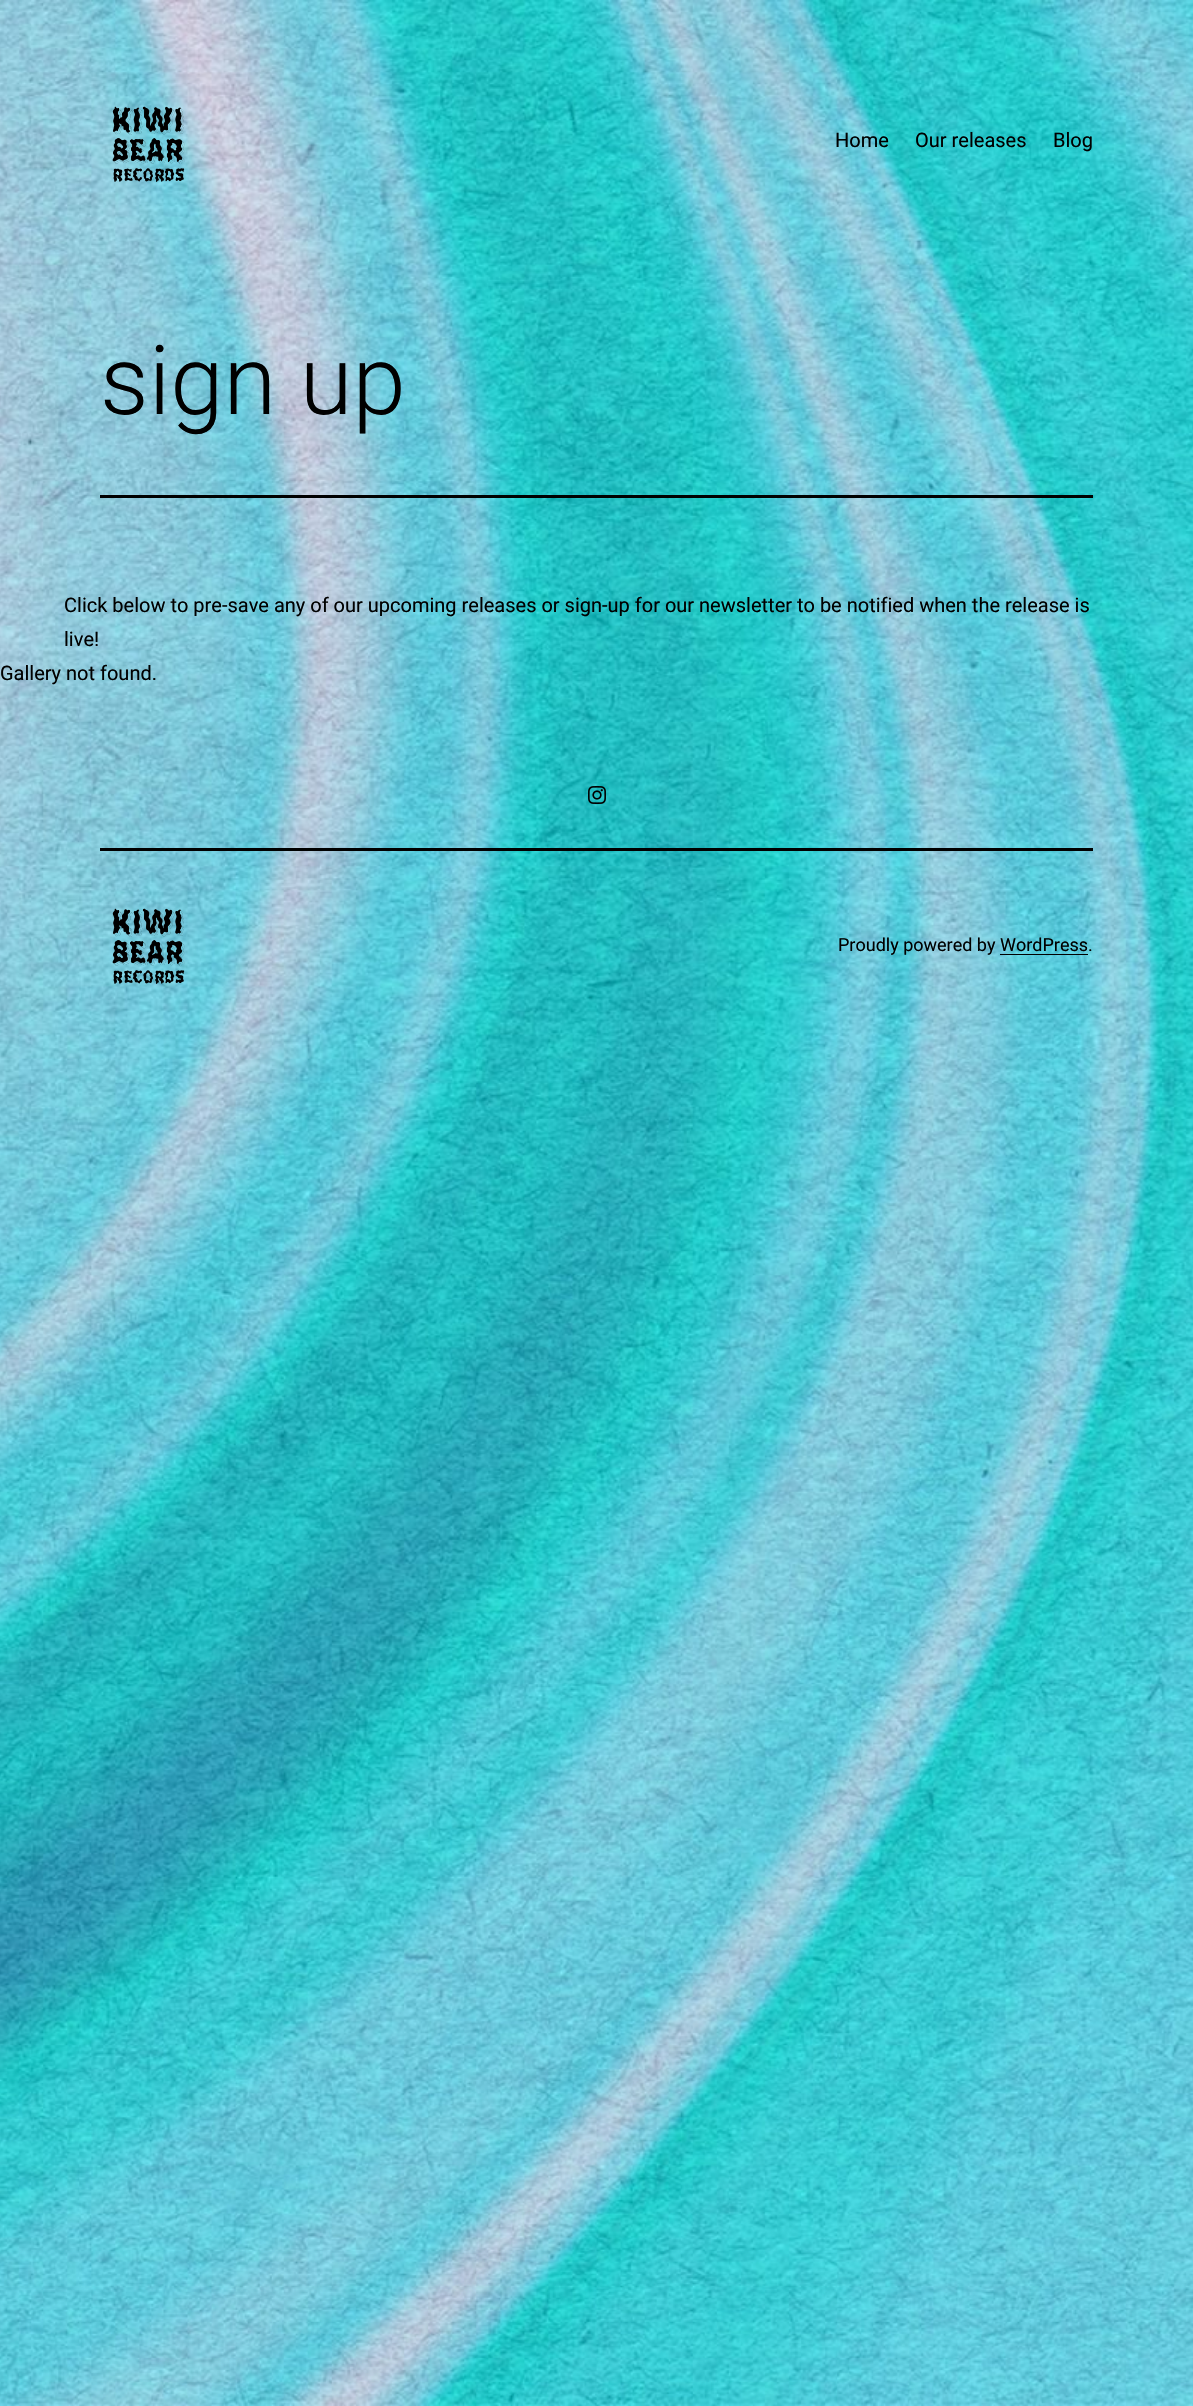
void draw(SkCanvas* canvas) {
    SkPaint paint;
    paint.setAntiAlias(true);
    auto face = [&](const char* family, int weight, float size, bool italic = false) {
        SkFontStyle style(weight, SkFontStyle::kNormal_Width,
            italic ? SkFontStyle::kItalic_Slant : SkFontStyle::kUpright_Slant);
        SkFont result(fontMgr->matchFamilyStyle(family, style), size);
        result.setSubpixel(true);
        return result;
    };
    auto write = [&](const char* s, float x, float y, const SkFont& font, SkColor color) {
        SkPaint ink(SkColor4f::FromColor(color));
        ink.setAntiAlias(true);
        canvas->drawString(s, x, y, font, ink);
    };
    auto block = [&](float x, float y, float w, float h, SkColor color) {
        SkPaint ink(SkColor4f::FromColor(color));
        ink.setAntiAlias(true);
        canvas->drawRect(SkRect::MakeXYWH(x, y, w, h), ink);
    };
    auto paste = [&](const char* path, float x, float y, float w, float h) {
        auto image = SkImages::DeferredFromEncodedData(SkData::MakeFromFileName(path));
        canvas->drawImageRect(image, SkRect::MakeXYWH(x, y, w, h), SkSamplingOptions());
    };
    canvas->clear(SK_ColorWHITE);
    paste("pic1.png", 0, 0, 1193, 2406);
    paste("pic2.png", 112, 106, 73, 76);
    auto kFont1 = face("Roboto", 400, 20);
    write("Home", 835, 147, kFont1, SK_ColorBLACK);
    write("Our releases", 915, 147, kFont1, SK_ColorBLACK);
    write("Blog", 1053, 147, kFont1, SK_ColorBLACK);
    block(100, 495, 993, 3, SK_ColorBLACK);
    auto kFont2 = face("Roboto", 300, 96);
    write("sign up", 100, 414, kFont2, SK_ColorBLACK);
    write("Click below to pre-save any of our upcoming releases or sign-up for our newsletter to be notified when the release is", 64, 612, kFont1, SK_ColorBLACK);
    write("live!", 64, 646, kFont1, SK_ColorBLACK);
    write("Gallery not found.", 0, 680, kFont1, SK_ColorBLACK);
    paste("pic3.png", 588, 786, 18, 18);
    block(100, 848, 993, 3, SK_ColorBLACK);
    paste("pic4.png", 112, 908, 73, 76);
    auto kFont3 = face("Roboto", 400, 18);
    write("Proudly powered by WordPress.", 838, 951, kFont3, SK_ColorBLACK);
    block(1000, 954, 88, 1, SK_ColorBLACK);
}
